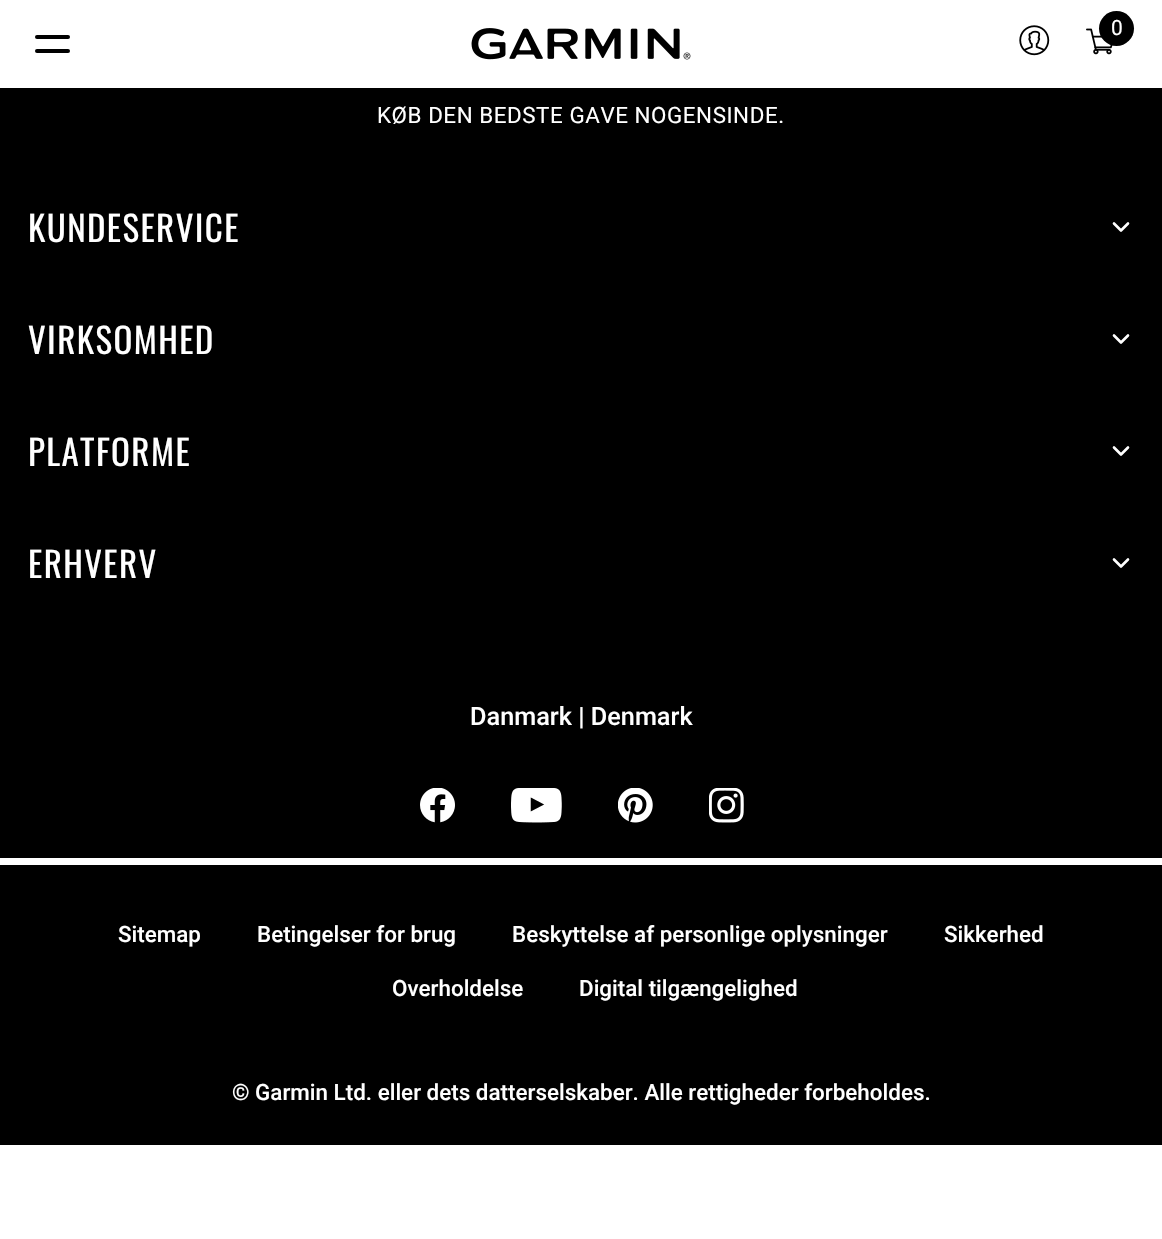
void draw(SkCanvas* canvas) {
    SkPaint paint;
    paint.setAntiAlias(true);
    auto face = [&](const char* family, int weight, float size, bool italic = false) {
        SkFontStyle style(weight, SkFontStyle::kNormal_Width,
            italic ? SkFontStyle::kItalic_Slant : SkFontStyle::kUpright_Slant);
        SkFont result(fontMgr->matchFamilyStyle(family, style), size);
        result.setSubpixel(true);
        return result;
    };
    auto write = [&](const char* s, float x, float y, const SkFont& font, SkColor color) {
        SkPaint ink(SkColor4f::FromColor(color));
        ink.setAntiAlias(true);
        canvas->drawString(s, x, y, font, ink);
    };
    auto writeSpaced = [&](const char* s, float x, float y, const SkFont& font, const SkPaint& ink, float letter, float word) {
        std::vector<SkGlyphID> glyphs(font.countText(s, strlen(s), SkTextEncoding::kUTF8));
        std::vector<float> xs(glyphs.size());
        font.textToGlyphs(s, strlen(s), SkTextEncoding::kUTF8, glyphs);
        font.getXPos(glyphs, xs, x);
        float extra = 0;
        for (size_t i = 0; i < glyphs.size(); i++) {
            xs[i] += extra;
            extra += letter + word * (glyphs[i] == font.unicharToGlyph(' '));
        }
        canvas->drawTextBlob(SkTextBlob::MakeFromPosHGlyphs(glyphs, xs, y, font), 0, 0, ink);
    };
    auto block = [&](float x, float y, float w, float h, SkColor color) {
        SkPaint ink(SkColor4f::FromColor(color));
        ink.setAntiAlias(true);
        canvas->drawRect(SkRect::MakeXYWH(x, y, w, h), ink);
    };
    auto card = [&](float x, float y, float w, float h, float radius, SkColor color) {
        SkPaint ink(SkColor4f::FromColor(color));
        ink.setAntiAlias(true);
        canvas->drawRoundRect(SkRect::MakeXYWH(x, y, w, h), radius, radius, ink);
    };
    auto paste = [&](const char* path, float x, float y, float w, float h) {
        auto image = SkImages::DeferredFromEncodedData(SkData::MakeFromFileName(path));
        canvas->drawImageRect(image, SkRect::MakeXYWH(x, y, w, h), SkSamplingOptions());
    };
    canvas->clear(SK_ColorWHITE);
    card(35, 35, 35, 4, 2, SK_ColorBLACK);
    card(35, 49, 35, 4, 2, SK_ColorBLACK);
    paste("pic1.png", 471, 28, 220, 32);
    paste("pic2.png", 1019, 25, 31, 31);
    paste("pic3.png", 1086, 28, 27, 27);
    paint.setColor(SK_ColorBLACK);
    canvas->drawCircle(1116.5f, 28.5f, 17.5f, paint);
    auto kFont1 = face("Roboto", 400, 21);
    write("0", 1111, 35, kFont1, SK_ColorWHITE);
    block(0, 88, 1162, 1057, SK_ColorBLACK);
    auto kFont2 = face("Roboto", 400, 22.4f);
    paint.setColor(SK_ColorWHITE);
    writeSpaced("KØB DEN BEDSTE GAVE NOGENSINDE.", 377, 123, kFont2, paint, 0.55f, 0);
    auto kFont3 = face("Oswald", 400, 35);
    writeSpaced("KUNDESERVICE", 28, 242, kFont3, paint, 1.4f, 0);
    paint.setStyle(SkPaint::kStroke_Style);
    paint.setStrokeWidth(2.6f);
    paint.setStrokeCap(SkPaint::kRound_Cap);
    paint.setStrokeJoin(SkPaint::kRound_Join);
    canvas->drawPath(SkPathBuilder().moveTo(1128, 223.5f).lineTo(1121, 230.5f).lineTo(1114, 223.5f).detach(), paint);
    paint.setStyle(SkPaint::kFill_Style);
    writeSpaced("VIRKSOMHED", 28, 354, kFont3, paint, 1.4f, 0);
    paint.setStyle(SkPaint::kStroke_Style);
    canvas->drawPath(SkPathBuilder().moveTo(1128, 335.5f).lineTo(1121, 342.5f).lineTo(1114, 335.5f).detach(), paint);
    paint.setStyle(SkPaint::kFill_Style);
    writeSpaced("PLATFORME", 28, 466, kFont3, paint, 1.4f, 0);
    paint.setStyle(SkPaint::kStroke_Style);
    canvas->drawPath(SkPathBuilder().moveTo(1128, 447.5f).lineTo(1121, 454.5f).lineTo(1114, 447.5f).detach(), paint);
    paint.setStyle(SkPaint::kFill_Style);
    writeSpaced("ERHVERV", 28, 578, kFont3, paint, 1.4f, 0);
    paint.setStyle(SkPaint::kStroke_Style);
    canvas->drawPath(SkPathBuilder().moveTo(1128, 559.5f).lineTo(1121, 566.5f).lineTo(1114, 559.5f).detach(), paint);
    block(0, 858, 1162, 7, SK_ColorWHITE);
    auto kFont4 = face("Roboto", 500, 25.25f);
    write("Danmark | Denmark", 470, 725, kFont4, SK_ColorWHITE);
    paste("pic4.png", 420, 788, 35, 35);
    paste("pic5.png", 511, 788, 51, 35);
    paste("pic6.png", 618, 788, 35, 35);
    paste("pic7.png", 709, 788, 35, 35);
    auto kFont5 = face("Roboto", 500, 22.4f);
    write("Sitemap", 118, 942, kFont5, SK_ColorWHITE);
    write("Betingelser for brug", 257, 942, kFont5, SK_ColorWHITE);
    write("Beskyttelse af personlige oplysninger", 512, 942, kFont5, SK_ColorWHITE);
    write("Sikkerhed", 944, 942, kFont5, SK_ColorWHITE);
    write("Overholdelse", 392, 996, kFont5, SK_ColorWHITE);
    write("Digital tilgængelighed", 579, 996, kFont5, SK_ColorWHITE);
    write("© Garmin Ltd. eller dets datterselskaber. Alle rettigheder forbeholdes.", 232, 1100, kFont5, SK_ColorWHITE);
}
